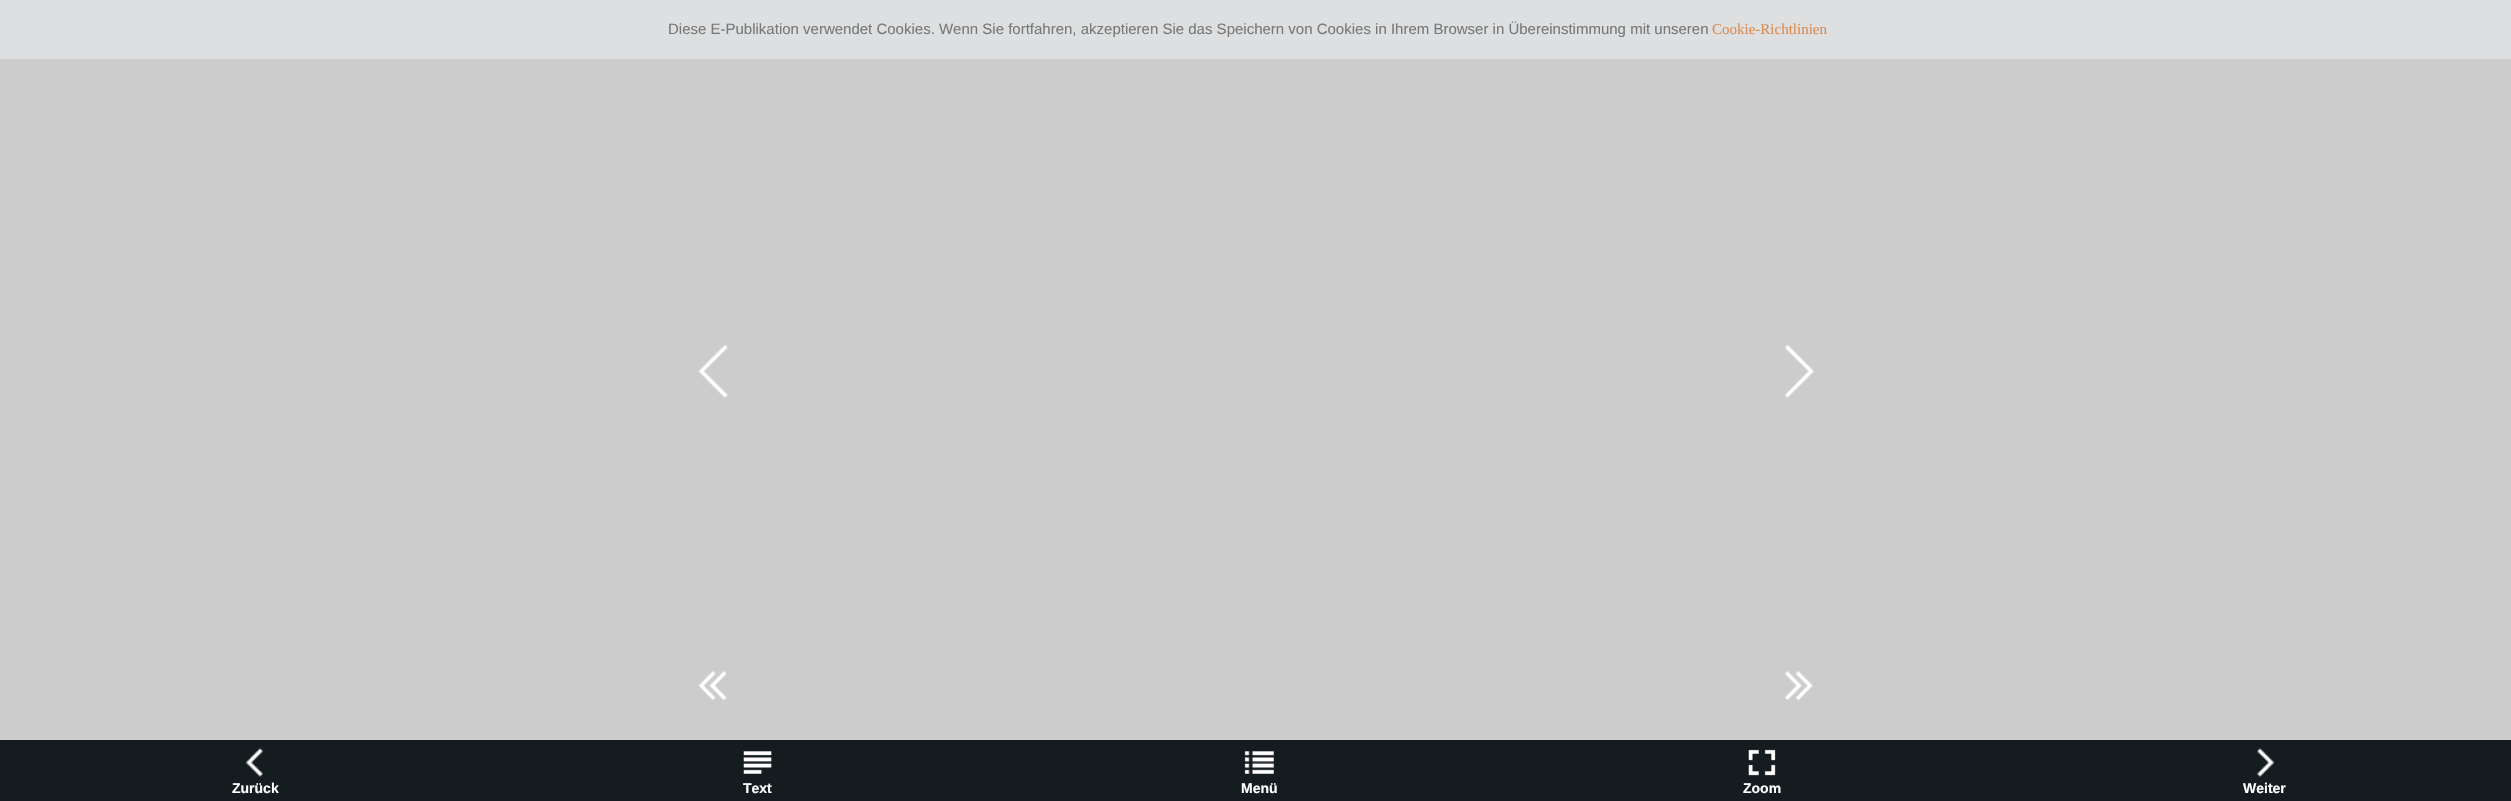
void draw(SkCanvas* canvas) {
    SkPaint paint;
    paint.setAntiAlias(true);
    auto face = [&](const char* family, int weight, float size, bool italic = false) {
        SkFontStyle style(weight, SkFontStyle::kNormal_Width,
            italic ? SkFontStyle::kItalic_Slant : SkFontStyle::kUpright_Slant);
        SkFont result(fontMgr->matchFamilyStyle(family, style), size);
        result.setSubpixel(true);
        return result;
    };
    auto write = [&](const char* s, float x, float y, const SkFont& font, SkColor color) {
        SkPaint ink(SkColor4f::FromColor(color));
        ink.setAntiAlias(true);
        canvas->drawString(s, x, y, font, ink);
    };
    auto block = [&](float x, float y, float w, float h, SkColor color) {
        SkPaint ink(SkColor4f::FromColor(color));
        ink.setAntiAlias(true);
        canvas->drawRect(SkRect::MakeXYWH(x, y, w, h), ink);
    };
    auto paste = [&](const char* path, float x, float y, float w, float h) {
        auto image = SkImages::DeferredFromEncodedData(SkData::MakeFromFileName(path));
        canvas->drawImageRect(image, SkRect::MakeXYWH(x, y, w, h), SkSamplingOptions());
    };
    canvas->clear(SkColorSetRGB(204, 204, 204));
    block(0, 0, 2511, 59, SkColorSetRGB(221, 223, 225));
    auto kFont1 = face("Liberation Sans", 400, 15);
    write("Diese E-Publikation verwendet Cookies. Wenn Sie fortfahren, akzeptieren Sie das Speichern von Cookies in Ihrem Browser in Übereinstimmung mit unseren", 668, 34, kFont1, SkColorSetRGB(120, 120, 120));
    auto kFont2 = face("Liberation Serif", 400, 15);
    write("Cookie-Richtlinien", 1712, 34, kFont2, SkColorSetRGB(219, 138, 83));
    paste("pic1.png", 698, 345, 30, 53);
    paste("pic2.png", 1785, 345, 29, 53);
    paste("pic3.png", 698, 671, 29, 29);
    paste("pic4.png", 1785, 671, 28, 29);
    block(0, 740, 2511, 61, SkColorSetRGB(21, 28, 32));
    paste("pic5.png", 246, 748, 17, 29);
    auto kFont3 = face("Liberation Sans", 700, 14);
    write("Zurück", 232, 793, kFont3, SK_ColorWHITE);
    paste("pic6.png", 743, 751, 29, 23);
    write("Text", 743, 793, kFont3, SK_ColorWHITE);
    paste("pic7.png", 1244, 751, 30, 23);
    write("Menü", 1241, 793, kFont3, SK_ColorWHITE);
    paste("pic8.png", 1748, 749, 28, 27);
    write("Zoom", 1743, 793, kFont3, SK_ColorWHITE);
    paste("pic9.png", 2257, 748, 17, 29);
    write("Weiter", 2243, 793, kFont3, SK_ColorWHITE);
}
